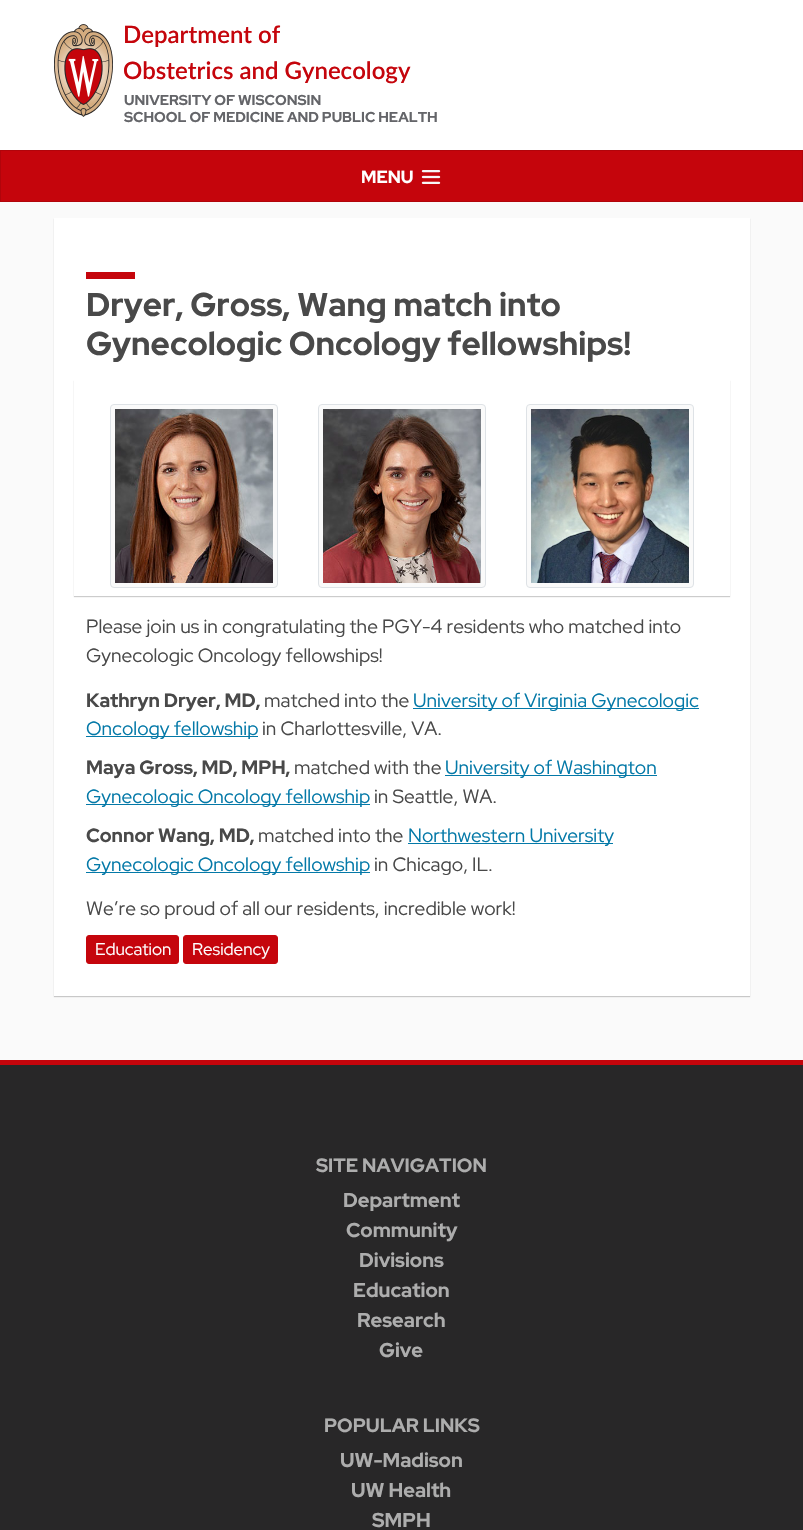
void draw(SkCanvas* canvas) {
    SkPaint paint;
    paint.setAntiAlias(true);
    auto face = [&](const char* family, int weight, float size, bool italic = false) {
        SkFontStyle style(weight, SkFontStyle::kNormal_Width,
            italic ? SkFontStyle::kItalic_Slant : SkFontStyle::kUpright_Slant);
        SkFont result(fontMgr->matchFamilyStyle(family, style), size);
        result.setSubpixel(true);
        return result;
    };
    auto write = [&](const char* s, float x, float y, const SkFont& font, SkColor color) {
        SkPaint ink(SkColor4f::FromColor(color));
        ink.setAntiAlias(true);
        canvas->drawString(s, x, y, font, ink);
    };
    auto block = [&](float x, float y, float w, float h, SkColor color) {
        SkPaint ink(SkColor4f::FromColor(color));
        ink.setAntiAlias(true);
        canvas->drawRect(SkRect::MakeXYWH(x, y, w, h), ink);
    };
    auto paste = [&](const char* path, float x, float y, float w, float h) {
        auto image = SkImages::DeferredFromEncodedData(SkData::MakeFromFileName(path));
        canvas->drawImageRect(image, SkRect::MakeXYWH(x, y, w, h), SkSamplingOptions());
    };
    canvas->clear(SkColorSetRGB(250, 250, 250));
    block(0, 0, 803, 150, SK_ColorWHITE);
    paste("pic1.png", 54, 24, 59, 93);
    auto kFont1 = face("Lato", 600, 24);
    write("Department of", 123, 43, kFont1, SkColorSetRGB(197, 5, 12));
    write("Obstetrics and Gynecology", 123, 79, kFont1, SkColorSetRGB(197, 5, 12));
    auto kFont2 = face("Red Hat Display", 700, 14.4f);
    write("UNIVERSITY OF WISCONSIN", 124, 105, kFont2, SkColorSetRGB(100, 101, 105));
    write("SCHOOL OF MEDICINE AND PUBLIC HEALTH", 124, 122, kFont2, SkColorSetRGB(100, 101, 105));
    paint.setColor(SkColorSetRGB(197, 5, 12));
    canvas->drawRect(SkRect::MakeXYWH(0.5f, 150.5f, 802, 51), paint);
    paint.setStyle(SkPaint::kStroke_Style);
    paint.setStrokeWidth(1);
    paint.setColor(SkColorSetRGB(177, 5, 11));
    canvas->drawRect(SkRect::MakeXYWH(0.5f, 150.5f, 802, 51), paint);
    auto kFont3 = face("Red Hat Display", 800, 17.5f);
    write("MENU", 361, 183, kFont3, SK_ColorWHITE);
    paste("pic2.png", 421, 170, 20, 14);
    paint.setStyle(SkPaint::kFill_Style);
    paint.setColor(SkColorSetARGB(51, 0, 0, 0));
    paint.setMaskFilter(SkMaskFilter::MakeBlur(kNormal_SkBlurStyle, 0.5f));
    canvas->drawRect(SkRect::MakeXYWH(54, 219, 696, 778), paint);
    paint.setMaskFilter(nullptr);
    block(54, 218, 696, 778, SK_ColorWHITE);
    block(86, 272, 49, 7, SkColorSetRGB(197, 5, 12));
    auto kFont4 = face("Red Hat Display", 800, 32.9f);
    write("Dryer, Gross, Wang match into", 86, 316, kFont4, SkColorSetRGB(73, 73, 73));
    write("Gynecologic Oncology fellowships!", 86, 355, kFont4, SkColorSetRGB(73, 73, 73));
    canvas->save();
    canvas->clipPath(SkPathBuilder(SkPathFillType::kEvenOdd).moveTo(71, 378).lineTo(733, 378).lineTo(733, 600).lineTo(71, 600).close().moveTo(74, 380).lineTo(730, 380).lineTo(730, 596).lineTo(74, 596).close().detach(), true);
    paint.setMaskFilter(SkMaskFilter::MakeBlur(kNormal_SkBlurStyle, 0.5f));
    canvas->drawRect(SkRect::MakeXYWH(74, 381, 656, 216), paint);
    paint.setMaskFilter(nullptr);
    canvas->restore();
    paint.setColor(SkColorSetRGB(250, 250, 250));
    canvas->drawRoundRect(SkRect::MakeXYWH(110.5f, 404.5f, 167, 183), 3.5f, 3.5f, paint);
    paint.setStyle(SkPaint::kStroke_Style);
    paint.setColor(SkColorSetRGB(222, 226, 230));
    canvas->drawRoundRect(SkRect::MakeXYWH(110.5f, 404.5f, 167, 183), 3.5f, 3.5f, paint);
    paste("pic3.png", 115, 409, 158, 174);
    paint.setStyle(SkPaint::kFill_Style);
    paint.setColor(SkColorSetRGB(250, 250, 250));
    canvas->drawRoundRect(SkRect::MakeXYWH(318.5f, 404.5f, 167, 183), 3.5f, 3.5f, paint);
    paint.setStyle(SkPaint::kStroke_Style);
    paint.setColor(SkColorSetRGB(222, 226, 230));
    canvas->drawRoundRect(SkRect::MakeXYWH(318.5f, 404.5f, 167, 183), 3.5f, 3.5f, paint);
    paste("pic4.png", 323, 409, 158, 174);
    paint.setStyle(SkPaint::kFill_Style);
    paint.setColor(SkColorSetRGB(250, 250, 250));
    canvas->drawRoundRect(SkRect::MakeXYWH(526.5f, 404.5f, 167, 183), 3.5f, 3.5f, paint);
    paint.setStyle(SkPaint::kStroke_Style);
    paint.setColor(SkColorSetRGB(222, 226, 230));
    canvas->drawRoundRect(SkRect::MakeXYWH(526.5f, 404.5f, 167, 183), 3.5f, 3.5f, paint);
    paste("pic5.png", 531, 409, 158, 174);
    auto kFont5 = face("Red Hat Display", 400, 19.2f);
    write("Please join us in congratulating the PGY-4 residents who matched into", 86, 633, kFont5, SkColorSetRGB(73, 73, 73));
    write("Gynecologic Oncology fellowships!", 86, 662, kFont5, SkColorSetRGB(73, 73, 73));
    auto kFont6 = face("Red Hat Display", 700, 19.2f);
    write("Kathryn Dryer, MD,", 86, 707, kFont6, SkColorSetRGB(73, 73, 73));
    write("matched into the", 264, 707, kFont5, SkColorSetRGB(73, 73, 73));
    block(413, 708, 286, 1, SkColorSetRGB(4, 121, 168));
    write("University of Virginia Gynecologic", 413, 707, kFont5, SkColorSetRGB(4, 121, 168));
    block(86, 736, 172, 1, SkColorSetRGB(4, 121, 168));
    write("Oncology fellowship", 86, 735, kFont5, SkColorSetRGB(4, 121, 168));
    write("in Charlottesville, VA.", 262, 735, kFont5, SkColorSetRGB(73, 73, 73));
    write("Maya Gross, MD, MPH,", 86, 774, kFont6, SkColorSetRGB(73, 73, 73));
    write("matched with the", 294, 774, kFont5, SkColorSetRGB(73, 73, 73));
    block(445, 775, 212, 1, SkColorSetRGB(4, 121, 168));
    write("University of Washington", 445, 774, kFont5, SkColorSetRGB(4, 121, 168));
    block(86, 804, 284, 1, SkColorSetRGB(4, 121, 168));
    write("Gynecologic Oncology fellowship", 86, 803, kFont5, SkColorSetRGB(4, 121, 168));
    write("in Seattle, WA.", 374, 803, kFont5, SkColorSetRGB(73, 73, 73));
    write("Connor Wang, MD,", 86, 842, kFont6, SkColorSetRGB(73, 73, 73));
    write("matched into the", 258, 842, kFont5, SkColorSetRGB(73, 73, 73));
    block(408, 843, 205, 1, SkColorSetRGB(4, 121, 168));
    write("Northwestern University", 408, 842, kFont5, SkColorSetRGB(4, 121, 168));
    block(86, 872, 284, 1, SkColorSetRGB(4, 121, 168));
    write("Gynecologic Oncology fellowship", 86, 871, kFont5, SkColorSetRGB(4, 121, 168));
    write("in Chicago, IL.", 374, 871, kFont5, SkColorSetRGB(73, 73, 73));
    write("We’re so proud of all our residents, incredible work!", 86, 915, kFont5, SkColorSetRGB(73, 73, 73));
    paint.setStyle(SkPaint::kFill_Style);
    paint.setColor(SkColorSetRGB(197, 5, 12));
    canvas->drawRoundRect(SkRect::MakeXYWH(86.5f, 935.5f, 92, 28), 2.5f, 2.5f, paint);
    paint.setStyle(SkPaint::kStroke_Style);
    canvas->drawRoundRect(SkRect::MakeXYWH(86.5f, 935.5f, 92, 28), 2.5f, 2.5f, paint);
    auto kFont7 = face("Red Hat Display", 400, 17);
    write("Education", 95, 955, kFont7, SK_ColorWHITE);
    paint.setStyle(SkPaint::kFill_Style);
    canvas->drawRoundRect(SkRect::MakeXYWH(183.5f, 935.5f, 94, 28), 2.5f, 2.5f, paint);
    paint.setStyle(SkPaint::kStroke_Style);
    canvas->drawRoundRect(SkRect::MakeXYWH(183.5f, 935.5f, 94, 28), 2.5f, 2.5f, paint);
    write("Residency", 192, 955, kFont7, SK_ColorWHITE);
    block(0, 1065, 803, 465, SkColorSetRGB(40, 39, 40));
    block(0, 1060, 803, 5, SkColorSetRGB(197, 5, 12));
    auto kFont8 = face("Red Hat Display", 800, 19.2f);
    write("SITE NAVIGATION", 316, 1172, kFont8, SkColorSetRGB(173, 173, 173));
    auto kFont9 = face("Red Hat Display", 700, 20);
    write("Department", 343, 1207, kFont9, SkColorSetRGB(173, 173, 173));
    write("Community", 346, 1237, kFont9, SkColorSetRGB(173, 173, 173));
    write("Divisions", 359, 1267, kFont9, SkColorSetRGB(173, 173, 173));
    write("Education", 353, 1297, kFont9, SkColorSetRGB(173, 173, 173));
    write("Research", 357, 1327, kFont9, SkColorSetRGB(173, 173, 173));
    write("Give", 379, 1357, kFont9, SkColorSetRGB(173, 173, 173));
    write("POPULAR LINKS", 324, 1432, kFont8, SkColorSetRGB(173, 173, 173));
    write("UW-Madison", 340, 1467, kFont9, SkColorSetRGB(173, 173, 173));
    write("UW Health", 351, 1497, kFont9, SkColorSetRGB(173, 173, 173));
    write("SMPH", 372, 1527, kFont9, SkColorSetRGB(173, 173, 173));
}
